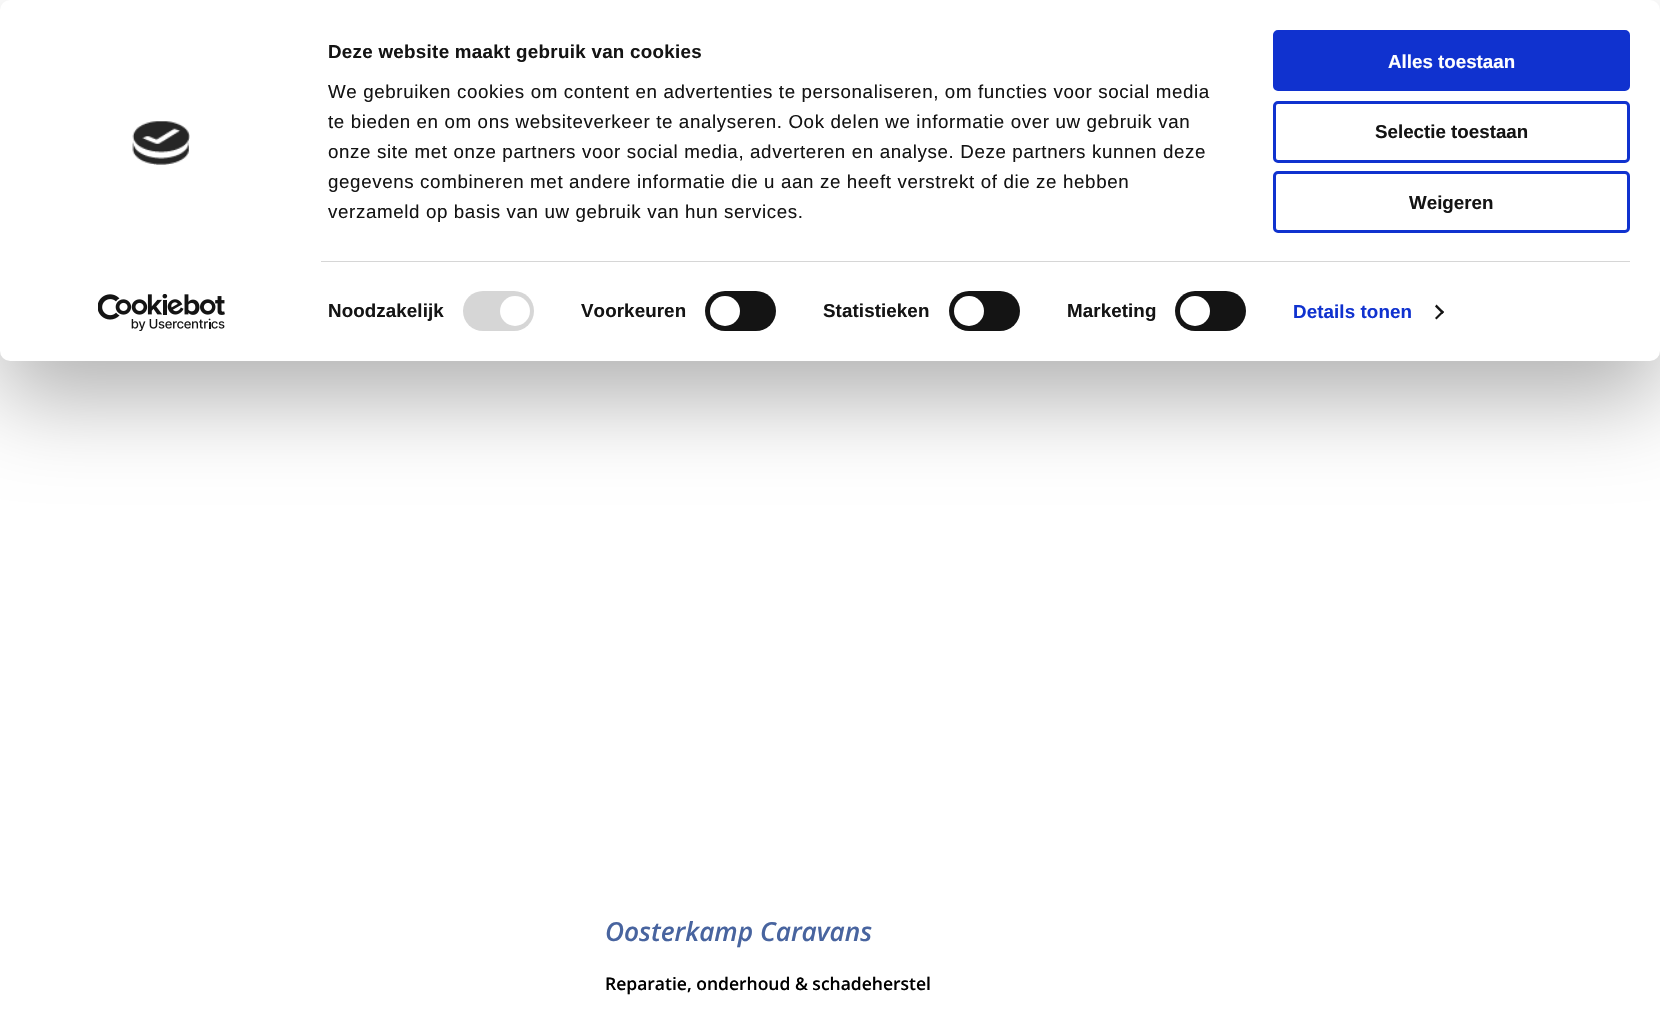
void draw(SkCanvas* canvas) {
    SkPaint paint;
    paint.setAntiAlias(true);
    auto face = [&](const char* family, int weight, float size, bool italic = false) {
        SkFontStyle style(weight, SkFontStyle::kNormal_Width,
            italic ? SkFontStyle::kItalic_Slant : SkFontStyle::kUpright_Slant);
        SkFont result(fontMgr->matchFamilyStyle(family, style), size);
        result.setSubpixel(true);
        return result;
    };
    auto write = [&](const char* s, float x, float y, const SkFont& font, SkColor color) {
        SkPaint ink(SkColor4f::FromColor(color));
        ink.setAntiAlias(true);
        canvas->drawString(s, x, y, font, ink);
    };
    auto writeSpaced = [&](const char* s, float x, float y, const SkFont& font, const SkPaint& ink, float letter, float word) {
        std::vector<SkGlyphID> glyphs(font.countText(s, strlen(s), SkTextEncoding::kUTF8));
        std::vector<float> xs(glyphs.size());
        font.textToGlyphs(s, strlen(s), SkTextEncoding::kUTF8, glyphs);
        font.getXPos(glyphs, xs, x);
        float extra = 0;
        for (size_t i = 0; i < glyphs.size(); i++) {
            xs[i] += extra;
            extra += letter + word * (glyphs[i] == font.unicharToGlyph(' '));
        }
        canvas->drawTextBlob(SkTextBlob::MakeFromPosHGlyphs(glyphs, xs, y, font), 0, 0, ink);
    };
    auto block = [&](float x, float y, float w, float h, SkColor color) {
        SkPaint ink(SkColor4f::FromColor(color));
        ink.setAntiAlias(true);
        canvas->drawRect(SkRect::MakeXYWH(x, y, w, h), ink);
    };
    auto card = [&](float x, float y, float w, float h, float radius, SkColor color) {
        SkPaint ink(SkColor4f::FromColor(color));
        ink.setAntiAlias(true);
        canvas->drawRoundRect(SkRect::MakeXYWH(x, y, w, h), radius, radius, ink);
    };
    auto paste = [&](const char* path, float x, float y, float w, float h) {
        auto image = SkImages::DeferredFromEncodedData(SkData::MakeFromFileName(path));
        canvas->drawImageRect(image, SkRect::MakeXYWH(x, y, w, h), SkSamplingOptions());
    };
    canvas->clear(SK_ColorWHITE);
    paint.setColor(SkColorSetARGB(77, 0, 0, 0));
    paint.setMaskFilter(SkMaskFilter::MakeBlur(kNormal_SkBlurStyle, 44));
    canvas->drawRoundRect(SkRect::MakeXYWH(0, 38, 1660, 361), 10, 10, paint);
    paint.setMaskFilter(nullptr);
    card(0, 0, 1660, 361, 10, SK_ColorWHITE);
    paste("pic1.png", 132, 121, 58, 44);
    paste("pic2.png", 98, 294, 127, 37);
    auto kFont1 = face("Liberation Sans", 700, 18.75f);
    paint.setColor(SkColorSetRGB(20, 20, 20));
    writeSpaced("Deze website maakt gebruik van cookies", 328, 58, kFont1, paint, 0.3f, 0);
    auto kFont2 = face("Liberation Sans", 400, 18.75f);
    writeSpaced("We gebruiken cookies om content en advertenties te personaliseren, om functies voor social media", 328, 98, kFont2, paint, 0.62f, 0);
    writeSpaced("te bieden en om ons websiteverkeer te analyseren. Ook delen we informatie over uw gebruik van", 328, 128, kFont2, paint, 0.62f, 0);
    writeSpaced("onze site met onze partners voor social media, adverteren en analyse. Deze partners kunnen deze", 328, 158, kFont2, paint, 0.62f, 0);
    writeSpaced("gegevens combineren met andere informatie die u aan ze heeft verstrekt of die ze hebben", 328, 188, kFont2, paint, 0.62f, 0);
    writeSpaced("verzameld op basis van uw gebruik van hun services.", 328, 218, kFont2, paint, 0.62f, 0);
    block(321, 261, 1309, 1, SkColorSetRGB(214, 214, 214));
    writeSpaced("Noodzakelijk", 328, 317, kFont1, paint, 0.1f, 0);
    card(463, 291, 71, 40, 20, SkColorSetRGB(214, 214, 214));
    paint.setColor(SK_ColorWHITE);
    canvas->drawCircle(515, 311, 15, paint);
    paint.setColor(SkColorSetRGB(20, 20, 20));
    writeSpaced("Voorkeuren", 581, 317, kFont1, paint, 0.1f, 0);
    card(705, 291, 71, 40, 20, SkColorSetRGB(20, 20, 20));
    paint.setColor(SK_ColorWHITE);
    canvas->drawCircle(725, 311, 15, paint);
    paint.setColor(SkColorSetRGB(20, 20, 20));
    writeSpaced("Statistieken", 823, 317, kFont1, paint, 0.1f, 0);
    card(949, 291, 71, 40, 20, SkColorSetRGB(20, 20, 20));
    paint.setColor(SK_ColorWHITE);
    canvas->drawCircle(969, 311, 15, paint);
    paint.setColor(SkColorSetRGB(20, 20, 20));
    writeSpaced("Marketing", 1067, 317, kFont1, paint, 0.1f, 0);
    card(1175, 291, 71, 40, 20, SkColorSetRGB(20, 20, 20));
    paint.setColor(SK_ColorWHITE);
    canvas->drawCircle(1195, 311, 15, paint);
    paint.setColor(SkColorSetRGB(16, 50, 207));
    writeSpaced("Details tonen", 1293, 318, kFont1, paint, 0.1f, 0);
    paint.setColor(SkColorSetRGB(20, 20, 20));
    canvas->drawPath(SkPathBuilder().moveTo(1436.5f, 304.5f).lineTo(1444, 312).lineTo(1442.5f, 314).lineTo(1435, 306.5f).close().detach(), paint);
    canvas->drawPath(SkPathBuilder().moveTo(1442.5f, 310.5f).lineTo(1444, 312).lineTo(1436.5f, 319.5f).lineTo(1435, 318).close().detach(), paint);
    paint.setColor(SkColorSetRGB(16, 50, 207));
    canvas->drawRoundRect(SkRect::MakeXYWH(1274.5f, 31.5f, 354, 58), 3.5f, 3.5f, paint);
    paint.setStyle(SkPaint::kStroke_Style);
    paint.setStrokeWidth(3);
    canvas->drawRoundRect(SkRect::MakeXYWH(1274.5f, 31.5f, 354, 58), 3.5f, 3.5f, paint);
    write("Alles toestaan", 1388, 68, kFont1, SK_ColorWHITE);
    canvas->drawRoundRect(SkRect::MakeXYWH(1274.5f, 102.5f, 354, 59), 3.5f, 3.5f, paint);
    write("Selectie toestaan", 1375, 138, kFont1, SkColorSetRGB(20, 20, 20));
    canvas->drawRoundRect(SkRect::MakeXYWH(1274.5f, 172.5f, 354, 59), 3.5f, 3.5f, paint);
    write("Weigeren", 1409, 209, kFont1, SkColorSetRGB(20, 20, 20));
    auto kFont3 = face("Open Sans", 600, 26.25f, true);
    write("Oosterkamp Caravans", 605, 941, kFont3, SkColorSetRGB(72, 100, 159));
    auto kFont4 = face("Open Sans", 600, 17.5f);
    write("Reparatie, onderhoud & schadeherstel", 605, 990, kFont4, SK_ColorBLACK);
}
